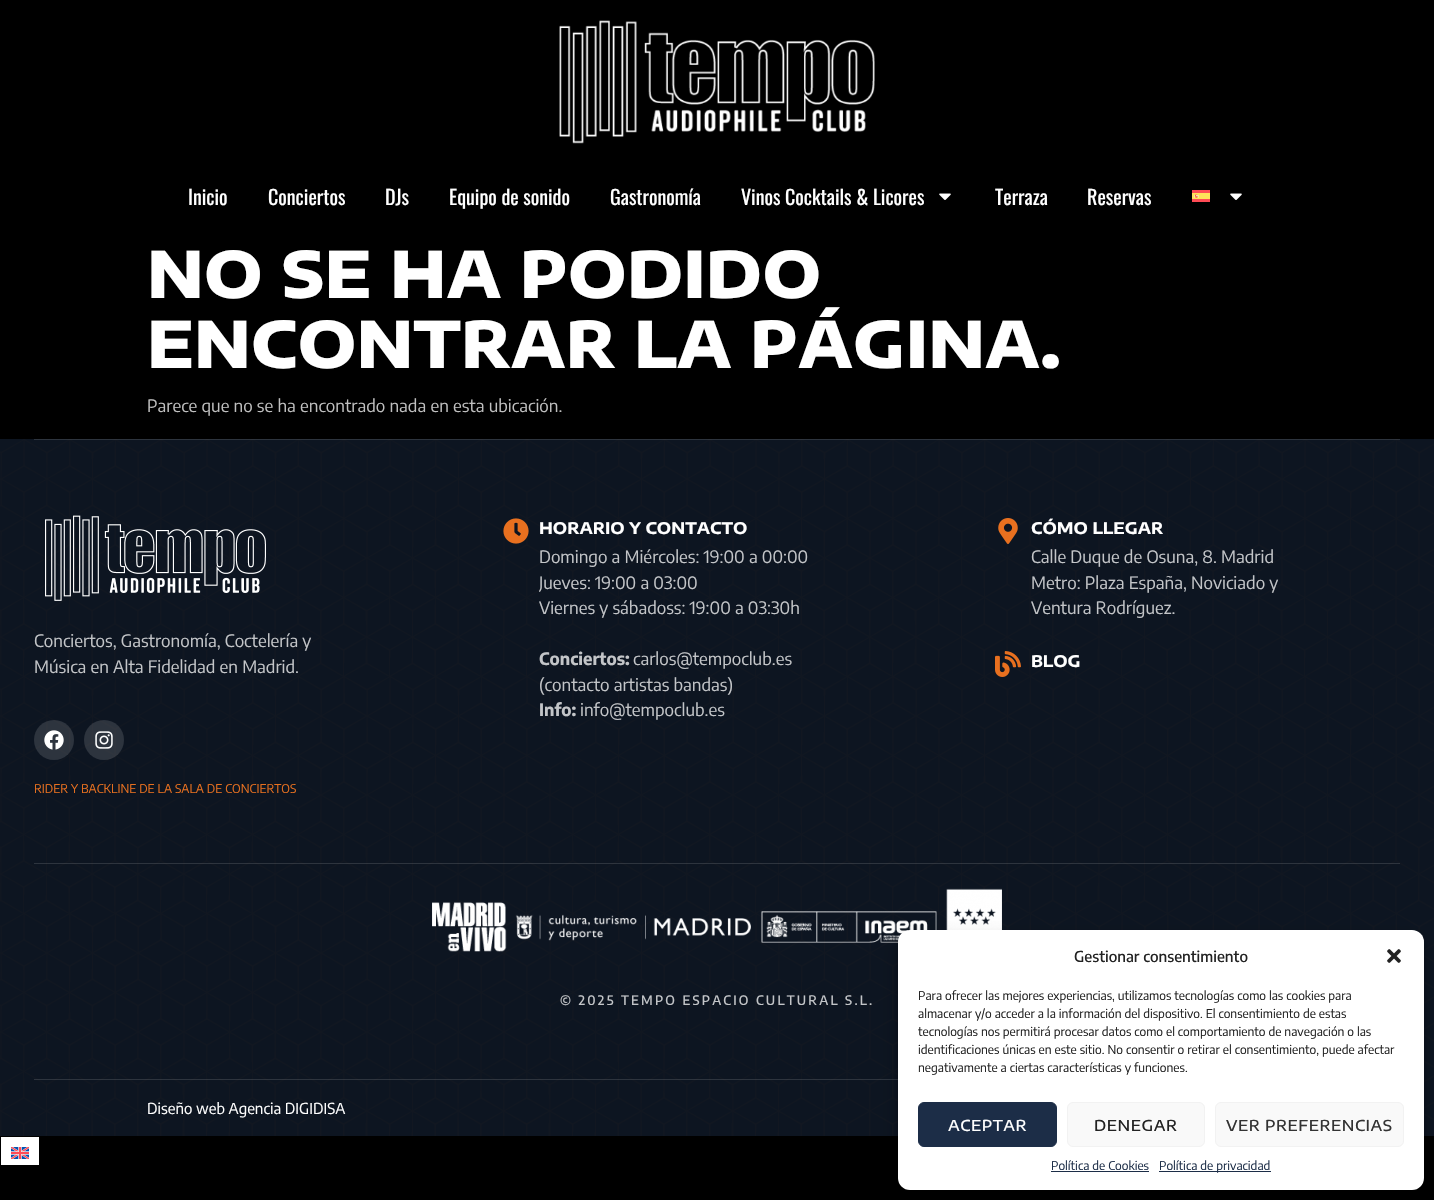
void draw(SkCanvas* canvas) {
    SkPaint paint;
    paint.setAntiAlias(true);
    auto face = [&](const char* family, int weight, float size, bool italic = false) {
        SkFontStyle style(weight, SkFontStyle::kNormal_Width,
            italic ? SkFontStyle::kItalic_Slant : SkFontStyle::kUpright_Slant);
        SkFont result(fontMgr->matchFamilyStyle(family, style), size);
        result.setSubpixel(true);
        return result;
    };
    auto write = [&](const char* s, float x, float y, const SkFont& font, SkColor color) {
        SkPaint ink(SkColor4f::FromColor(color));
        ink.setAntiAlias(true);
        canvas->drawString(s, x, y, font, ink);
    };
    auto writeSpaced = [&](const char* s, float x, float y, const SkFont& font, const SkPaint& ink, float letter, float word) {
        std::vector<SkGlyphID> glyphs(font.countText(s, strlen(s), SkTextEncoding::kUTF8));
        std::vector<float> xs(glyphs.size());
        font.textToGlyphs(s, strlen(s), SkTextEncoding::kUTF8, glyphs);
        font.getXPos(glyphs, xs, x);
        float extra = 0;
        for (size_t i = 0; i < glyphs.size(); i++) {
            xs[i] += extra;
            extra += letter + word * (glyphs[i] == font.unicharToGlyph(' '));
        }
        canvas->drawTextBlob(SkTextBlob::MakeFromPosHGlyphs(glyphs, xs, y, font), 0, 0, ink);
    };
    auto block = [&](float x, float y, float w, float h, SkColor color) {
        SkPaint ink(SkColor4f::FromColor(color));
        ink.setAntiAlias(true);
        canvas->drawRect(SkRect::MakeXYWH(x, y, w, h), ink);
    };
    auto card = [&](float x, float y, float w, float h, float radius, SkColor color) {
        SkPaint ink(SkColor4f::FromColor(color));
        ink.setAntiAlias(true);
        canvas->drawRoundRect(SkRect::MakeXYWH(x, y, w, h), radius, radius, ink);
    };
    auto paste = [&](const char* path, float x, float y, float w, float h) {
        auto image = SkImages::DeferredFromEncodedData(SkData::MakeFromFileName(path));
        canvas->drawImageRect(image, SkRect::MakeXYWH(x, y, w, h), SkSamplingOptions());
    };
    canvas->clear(SK_ColorBLACK);
    paste("pic1.png", 559, 20, 316, 124);
    auto kFont1 = face("Oswald", 400, 20);
    write("Inicio", 188, 205, kFont1, SK_ColorWHITE);
    write("Conciertos", 268, 205, kFont1, SK_ColorWHITE);
    write("DJs", 385, 205, kFont1, SK_ColorWHITE);
    write("Equipo de sonido", 449, 205, kFont1, SK_ColorWHITE);
    write("Gastronomía", 610, 205, kFont1, SK_ColorWHITE);
    write("Vinos Cocktails & Licores", 741, 205, kFont1, SK_ColorWHITE);
    paste("pic2.png", 939, 193, 12, 7);
    write("Terraza", 995, 205, kFont1, SK_ColorWHITE);
    write("Reservas", 1087, 205, kFont1, SK_ColorWHITE);
    paste("pic3.png", 1192, 190, 18, 12);
    paste("pic2.png", 1230, 193, 12, 7);
    auto kFont2 = face("Encode Sans Expanded", 800, 64);
    write("NO SE HA PODIDO", 147, 298, kFont2, SK_ColorWHITE);
    write("ENCONTRAR LA PÁGINA.", 147, 368, kFont2, SK_ColorWHITE);
    auto kFont3 = face("Encode Sans Condensed", 400, 17);
    write("Parece que no se ha encontrado nada en esta ubicación.", 147, 412, kFont3, SkColorSetRGB(191, 191, 191));
    paste("pic4.png", 0, 439, 1434, 697);
    block(34, 439, 1366, 1, SkColorSetARGB(33, 255, 255, 255));
    paste("pic5.png", 45, 515, 221, 86);
    write("Conciertos, Gastronomía, Coctelería y", 34, 647, kFont3, SkColorSetRGB(195, 197, 200));
    write("Música en Alta Fidelidad en Madrid.", 34, 673, kFont3, SkColorSetRGB(195, 197, 200));
    paint.setColor(SkColorSetARGB(33, 255, 255, 255));
    canvas->drawCircle(54, 740, 20, paint);
    paste("pic6.png", 44, 730, 20, 20);
    canvas->drawCircle(104, 740, 20, paint);
    paste("pic7.png", 95, 731, 18, 18);
    auto kFont4 = face("Encode Sans Condensed", 400, 12);
    write("RIDER Y BACKLINE DE LA SALA DE CONCIERTOS", 34, 793, kFont4, SkColorSetRGB(232, 112, 31));
    paste("pic8.png", 503, 518, 26, 26);
    auto kFont5 = face("Encode Sans Expanded", 700, 16);
    write("HORARIO Y CONTACTO", 539, 534, kFont5, SK_ColorWHITE);
    write("Domingo a Miércoles: 19:00 a 00:00", 539, 563, kFont3, SkColorSetRGB(195, 197, 200));
    write("Jueves: 19:00 a 03:00", 539, 589, kFont3, SkColorSetRGB(195, 197, 200));
    write("Viernes y sábadoss: 19:00 a 03:30h", 539, 614, kFont3, SkColorSetRGB(195, 197, 200));
    auto kFont6 = face("Encode Sans Condensed", 700, 17);
    write("Conciertos:", 539, 665, kFont6, SkColorSetRGB(195, 197, 200));
    write("carlos@tempoclub.es", 633, 665, kFont3, SkColorSetRGB(195, 197, 200));
    write("(contacto artistas bandas)", 539, 691, kFont3, SkColorSetRGB(195, 197, 200));
    write("Info:", 539, 716, kFont6, SkColorSetRGB(195, 197, 200));
    write("info@tempoclub.es", 580, 716, kFont3, SkColorSetRGB(195, 197, 200));
    paste("pic9.png", 998, 518, 20, 26);
    write("CÓMO LLEGAR", 1031, 534, kFont5, SK_ColorWHITE);
    write("Calle Duque de Osuna, 8. Madrid", 1031, 563, kFont3, SkColorSetRGB(195, 197, 200));
    write("Metro: Plaza España, Noviciado y", 1031, 589, kFont3, SkColorSetRGB(195, 197, 200));
    write("Ventura Rodríguez.", 1031, 614, kFont3, SkColorSetRGB(195, 197, 200));
    paste("pic10.png", 995, 651, 26, 26);
    write("BLOG", 1031, 667, kFont5, SK_ColorWHITE);
    block(34, 863, 1366, 1, SkColorSetARGB(33, 255, 255, 255));
    paste("pic11.png", 432, 888, 570, 64);
    auto kFont7 = face("Encode Sans Condensed", 500, 13);
    paint.setColor(SkColorSetRGB(195, 197, 200));
    writeSpaced("© 2025 TEMPO ESPACIO CULTURAL S.L.", 560, 1005, kFont7, paint, 2.2f, 0);
    block(34, 1079, 864, 1, SkColorSetARGB(33, 255, 255, 255));
    auto kFont8 = face("Encode Sans Condensed", 400, 15);
    write("Diseño web Agencia DIGIDISA", 147, 1114, kFont8, SK_ColorWHITE);
    block(1, 1137, 38, 28, SK_ColorWHITE);
    paste("pic12.png", 11, 1147, 18, 12);
    paint.setColor(SkColorSetARGB(59, 0, 0, 0));
    paint.setMaskFilter(SkMaskFilter::MakeBlur(kNormal_SkBlurStyle, 3));
    canvas->drawRoundRect(SkRect::MakeXYWH(898, 936, 526, 260), 12, 12, paint);
    paint.setMaskFilter(nullptr);
    paint.setColor(SkColorSetARGB(48, 0, 0, 0));
    paint.setMaskFilter(SkMaskFilter::MakeBlur(kNormal_SkBlurStyle, 10));
    canvas->drawRoundRect(SkRect::MakeXYWH(898, 940, 526, 260), 12, 12, paint);
    paint.setMaskFilter(nullptr);
    card(898, 930, 526, 260, 12, SK_ColorWHITE);
    auto kFont9 = face("Encode Sans Condensed", 500, 15);
    write("Gestionar consentimiento", 1074, 962, kFont9, SkColorSetRGB(34, 34, 34));
    paste("pic13.png", 1387, 949, 14, 14);
    write("Para ofrecer las mejores experiencias, utilizamos tecnologías como las cookies para", 918, 1000, kFont4, SkColorSetRGB(34, 34, 34));
    write("almacenar y/o acceder a la información del dispositivo. El consentimiento de estas", 918, 1018, kFont4, SkColorSetRGB(34, 34, 34));
    write("tecnologías nos permitirá procesar datos como el comportamiento de navegación o las", 918, 1036, kFont4, SkColorSetRGB(34, 34, 34));
    write("identificaciones únicas en este sitio. No consentir o retirar el consentimiento, puede afectar", 918, 1054, kFont4, SkColorSetRGB(34, 34, 34));
    write("negativamente a ciertas características y funciones.", 918, 1072, kFont4, SkColorSetRGB(34, 34, 34));
    paint.setColor(SkColorSetRGB(28, 45, 71));
    canvas->drawRoundRect(SkRect::MakeXYWH(918.5f, 1102.5f, 138, 44), 5.5f, 5.5f, paint);
    paint.setStyle(SkPaint::kStroke_Style);
    paint.setStrokeWidth(1);
    canvas->drawRoundRect(SkRect::MakeXYWH(918.5f, 1102.5f, 138, 44), 5.5f, 5.5f, paint);
    auto kFont10 = face("Encode Sans Expanded", 500, 15);
    paint.setStyle(SkPaint::kFill_Style);
    paint.setColor(SK_ColorWHITE);
    writeSpaced("ACEPTAR", 948, 1131, kFont10, paint, 0.5f, 0);
    paint.setColor(SkColorSetRGB(249, 249, 249));
    canvas->drawRoundRect(SkRect::MakeXYWH(1067.5f, 1102.5f, 137, 44), 5.5f, 5.5f, paint);
    paint.setStyle(SkPaint::kStroke_Style);
    paint.setColor(SkColorSetRGB(242, 242, 242));
    canvas->drawRoundRect(SkRect::MakeXYWH(1067.5f, 1102.5f, 137, 44), 5.5f, 5.5f, paint);
    paint.setStyle(SkPaint::kFill_Style);
    paint.setColor(SkColorSetRGB(34, 34, 34));
    writeSpaced("DENEGAR", 1094, 1131, kFont10, paint, 0.5f, 0);
    paint.setColor(SkColorSetRGB(249, 249, 249));
    canvas->drawRoundRect(SkRect::MakeXYWH(1215.5f, 1102.5f, 188, 44), 5.5f, 5.5f, paint);
    paint.setStyle(SkPaint::kStroke_Style);
    paint.setColor(SkColorSetRGB(242, 242, 242));
    canvas->drawRoundRect(SkRect::MakeXYWH(1215.5f, 1102.5f, 188, 44), 5.5f, 5.5f, paint);
    paint.setStyle(SkPaint::kFill_Style);
    paint.setColor(SkColorSetRGB(51, 51, 51));
    writeSpaced("VER PREFERENCIAS", 1226, 1131, kFont10, paint, 0.5f, 0);
    write("Política de Cookies", 1051, 1170, kFont4, SkColorSetRGB(28, 45, 71));
    block(1051, 1171, 98, 1, SkColorSetRGB(28, 45, 71));
    block(1159, 1171, 112, 1, SkColorSetRGB(28, 45, 71));
    write("Política de privacidad", 1159, 1170, kFont4, SkColorSetRGB(28, 45, 71));
}
